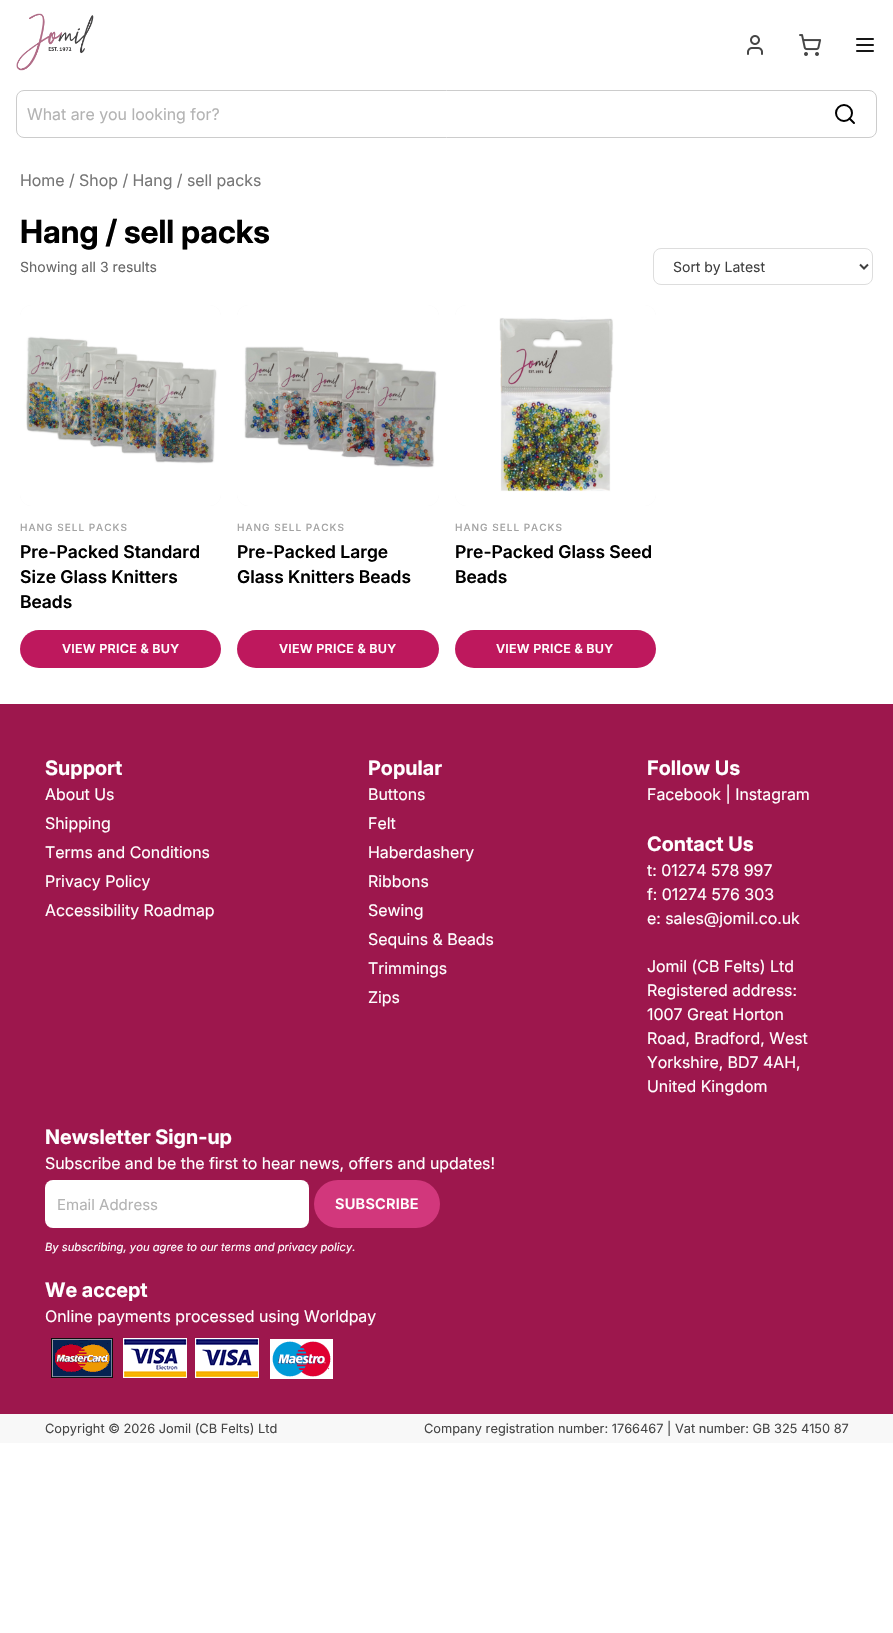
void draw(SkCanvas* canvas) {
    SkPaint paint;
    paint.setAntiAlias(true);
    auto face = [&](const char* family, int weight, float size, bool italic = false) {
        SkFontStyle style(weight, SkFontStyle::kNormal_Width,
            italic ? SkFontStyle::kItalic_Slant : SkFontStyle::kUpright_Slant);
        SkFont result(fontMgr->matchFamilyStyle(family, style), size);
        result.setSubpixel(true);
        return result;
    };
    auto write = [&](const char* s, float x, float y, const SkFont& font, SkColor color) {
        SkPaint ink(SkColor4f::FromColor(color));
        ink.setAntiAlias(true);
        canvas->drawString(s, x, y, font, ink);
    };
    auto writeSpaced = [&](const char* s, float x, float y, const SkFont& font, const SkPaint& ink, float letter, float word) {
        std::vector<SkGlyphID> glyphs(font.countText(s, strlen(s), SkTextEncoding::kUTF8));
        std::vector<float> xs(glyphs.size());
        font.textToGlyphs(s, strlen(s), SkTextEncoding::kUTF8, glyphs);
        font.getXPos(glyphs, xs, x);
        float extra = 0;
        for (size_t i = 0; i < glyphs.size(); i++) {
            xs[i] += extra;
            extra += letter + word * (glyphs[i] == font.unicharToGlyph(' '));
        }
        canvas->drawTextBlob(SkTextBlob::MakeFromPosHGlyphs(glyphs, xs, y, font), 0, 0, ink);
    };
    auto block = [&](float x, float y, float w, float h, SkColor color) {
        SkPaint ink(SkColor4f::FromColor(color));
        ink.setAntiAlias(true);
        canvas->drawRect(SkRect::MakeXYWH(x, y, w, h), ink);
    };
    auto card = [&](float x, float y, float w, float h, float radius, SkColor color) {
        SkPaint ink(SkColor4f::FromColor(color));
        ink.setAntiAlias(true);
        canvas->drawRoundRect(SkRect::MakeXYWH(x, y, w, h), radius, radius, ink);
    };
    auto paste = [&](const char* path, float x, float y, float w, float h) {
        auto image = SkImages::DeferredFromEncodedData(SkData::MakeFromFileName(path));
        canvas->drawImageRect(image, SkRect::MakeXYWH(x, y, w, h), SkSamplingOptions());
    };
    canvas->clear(SK_ColorWHITE);
    paste("pic1.png", 16, 13, 78, 58);
    paste("pic2.png", 747, 35, 16, 20);
    paste("pic3.png", 799, 34, 23, 22);
    paste("pic4.png", 856, 38, 18, 14);
    paint.setStyle(SkPaint::kStroke_Style);
    paint.setStrokeWidth(1);
    paint.setColor(SkColorSetRGB(204, 204, 204));
    canvas->drawRoundRect(SkRect::MakeXYWH(16.5f, 90.5f, 860, 47), 7.5f, 7.5f, paint);
    auto kFont1 = face("Inter", 400, 16);
    write("What are you looking for?", 27, 120, kFont1, SkColorSetRGB(179, 179, 179));
    paint.setStrokeWidth(2);
    paint.setColor(SK_ColorBLACK);
    canvas->drawCircle(844, 113, 8, paint);
    paint.setStrokeCap(SkPaint::kRound_Cap);
    paint.setStrokeJoin(SkPaint::kRound_Join);
    canvas->drawPath(SkPathBuilder().moveTo(854, 123).lineTo(849.5f, 118.5f).detach(), paint);
    write("Home / Shop / Hang / sell packs", 20, 186, kFont1, SkColorSetRGB(118, 118, 118));
    auto kFont2 = face("Inter", 700, 32);
    write("Hang / sell packs", 20, 243, kFont2, SK_ColorBLACK);
    auto kFont3 = face("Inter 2", 400, 14);
    write("Showing all 3 results", 20, 272, kFont3, SkColorSetRGB(102, 102, 102));
    paint.setStrokeWidth(1);
    paint.setStrokeCap(SkPaint::kButt_Cap);
    paint.setStrokeJoin(SkPaint::kMiter_Join);
    paint.setColor(SkColorSetRGB(221, 221, 221));
    canvas->drawRoundRect(SkRect::MakeXYWH(653.5f, 248.5f, 219, 36), 7.5f, 7.5f, paint);
    paint.setStrokeWidth(2);
    paint.setColor(SkColorSetRGB(64, 64, 64));
    canvas->drawPath(SkPathBuilder().moveTo(860, 264.5f).lineTo(864, 268.5f).lineTo(868, 264.5f).detach(), paint);
    write("Sort by Latest", 673, 272, kFont3, SkColorSetRGB(64, 64, 64));
    card(20, 305, 201, 201, 12, SkColorSetRGB(250, 250, 250));
    paste("pic5.png", 20, 305, 201, 201);
    auto kFont4 = face("Inter", 500, 10);
    paint.setStyle(SkPaint::kFill_Style);
    paint.setColor(SkColorSetRGB(163, 163, 163));
    writeSpaced("HANG SELL PACKS", 20, 531, kFont4, paint, 1, 0);
    auto kFont5 = face("Inter", 600, 17.6f);
    write("Pre-Packed Standard", 20, 558, kFont5, SK_ColorBLACK);
    write("Size Glass Knitters", 20, 583, kFont5, SK_ColorBLACK);
    write("Beads", 20, 608, kFont5, SK_ColorBLACK);
    card(20, 630, 201, 38, 19, SkColorSetRGB(190, 24, 93));
    auto kFont6 = face("Inter 2", 600, 12.5f);
    paint.setColor(SK_ColorWHITE);
    writeSpaced("VIEW PRICE & BUY", 62, 653, kFont6, paint, 0.25f, 0);
    card(237, 305, 202, 201, 12, SkColorSetRGB(250, 250, 250));
    paste("pic6.png", 237, 305, 202, 201);
    paint.setColor(SkColorSetRGB(163, 163, 163));
    writeSpaced("HANG SELL PACKS", 237, 531, kFont4, paint, 1, 0);
    write("Pre-Packed Large", 237, 558, kFont5, SK_ColorBLACK);
    write("Glass Knitters Beads", 237, 583, kFont5, SK_ColorBLACK);
    card(237, 630, 202, 38, 19, SkColorSetRGB(190, 24, 93));
    paint.setColor(SK_ColorWHITE);
    writeSpaced("VIEW PRICE & BUY", 279, 653, kFont6, paint, 0.25f, 0);
    card(455, 305, 201, 201, 12, SkColorSetRGB(250, 250, 250));
    paste("pic7.png", 455, 305, 201, 201);
    paint.setColor(SkColorSetRGB(163, 163, 163));
    writeSpaced("HANG SELL PACKS", 455, 531, kFont4, paint, 1, 0);
    write("Pre-Packed Glass Seed", 455, 558, kFont5, SK_ColorBLACK);
    write("Beads", 455, 583, kFont5, SK_ColorBLACK);
    card(455, 630, 201, 38, 19, SkColorSetRGB(190, 24, 93));
    paint.setColor(SK_ColorWHITE);
    writeSpaced("VIEW PRICE & BUY", 496, 653, kFont6, paint, 0.25f, 0);
    block(0, 1414, 893, 29, SkColorSetRGB(248, 248, 248));
    block(0, 704, 893, 710, SkColorSetRGB(157, 23, 77));
    auto kFont7 = face("Inter 2", 700, 20);
    write("Support", 45, 775, kFont7, SK_ColorWHITE);
    write("About Us", 45, 800, kFont1, SK_ColorWHITE);
    write("Shipping", 45, 829, kFont1, SK_ColorWHITE);
    write("Terms and Conditions", 45, 858, kFont1, SK_ColorWHITE);
    write("Privacy Policy", 45, 887, kFont1, SK_ColorWHITE);
    write("Accessibility Roadmap", 45, 916, kFont1, SK_ColorWHITE);
    write("Popular", 368, 775, kFont7, SK_ColorWHITE);
    write("Buttons", 368, 800, kFont1, SK_ColorWHITE);
    write("Felt", 368, 829, kFont1, SK_ColorWHITE);
    write("Haberdashery", 368, 858, kFont1, SK_ColorWHITE);
    write("Ribbons", 368, 887, kFont1, SK_ColorWHITE);
    write("Sewing", 368, 916, kFont1, SK_ColorWHITE);
    write("Sequins & Beads", 368, 945, kFont1, SK_ColorWHITE);
    write("Trimmings", 368, 974, kFont1, SK_ColorWHITE);
    write("Zips", 368, 1003, kFont1, SK_ColorWHITE);
    write("Follow Us", 647, 775, kFont7, SK_ColorWHITE);
    write("Facebook | Instagram", 647, 800, kFont1, SK_ColorWHITE);
    write("Contact Us", 647, 851, kFont7, SK_ColorWHITE);
    write("t: 01274 578 997", 647, 876, kFont1, SK_ColorWHITE);
    write("f: 01274 576 303", 647, 900, kFont1, SK_ColorWHITE);
    write("e: sales@jomil.co.uk", 647, 924, kFont1, SK_ColorWHITE);
    write("Jomil (CB Felts) Ltd", 647, 972, kFont1, SK_ColorWHITE);
    write("Registered address:", 647, 996, kFont1, SK_ColorWHITE);
    write("1007 Great Horton", 647, 1020, kFont1, SK_ColorWHITE);
    write("Road, Bradford, West", 647, 1044, kFont1, SK_ColorWHITE);
    write("Yorkshire, BD7 4AH,", 647, 1068, kFont1, SK_ColorWHITE);
    write("United Kingdom", 647, 1092, kFont1, SK_ColorWHITE);
    write("Newsletter Sign-up", 45, 1144, kFont7, SK_ColorWHITE);
    write("Subscribe and be the first to hear news, offers and updates!", 45, 1169, kFont1, SK_ColorWHITE);
    card(45, 1180, 264, 48, 8, SK_ColorWHITE);
    auto kFont8 = face("Inter 2", 400, 15);
    write("Email Address", 57, 1210, kFont8, SkColorSetRGB(179, 179, 179));
    card(314, 1180, 126, 48, 24, SkColorSetRGB(210, 55, 124));
    auto kFont9 = face("Inter 2", 600, 14.5f);
    writeSpaced("SUBSCRIBE", 335, 1209, kFont9, paint, 0.25f, 0);
    auto kFont10 = face("Inter", 400, 11.2f, true);
    write("By subscribing, you agree to our terms and privacy policy.", 45, 1251, kFont10, SK_ColorWHITE);
    write("We accept", 45, 1297, kFont7, SK_ColorWHITE);
    write("Online payments processed using Worldpay", 45, 1322, kFont1, SK_ColorWHITE);
    paste("pic8.png", 51, 1338, 282, 41);
    auto kFont11 = face("Inter 2", 400, 12.8f);
    write("Copyright © 2026 Jomil (CB Felts) Ltd", 45, 1433, kFont11, SkColorSetRGB(70, 70, 70));
    write("Company registration number: 1766467 | Vat number: GB 325 4150 87", 424, 1433, kFont11, SkColorSetRGB(70, 70, 70));
}
